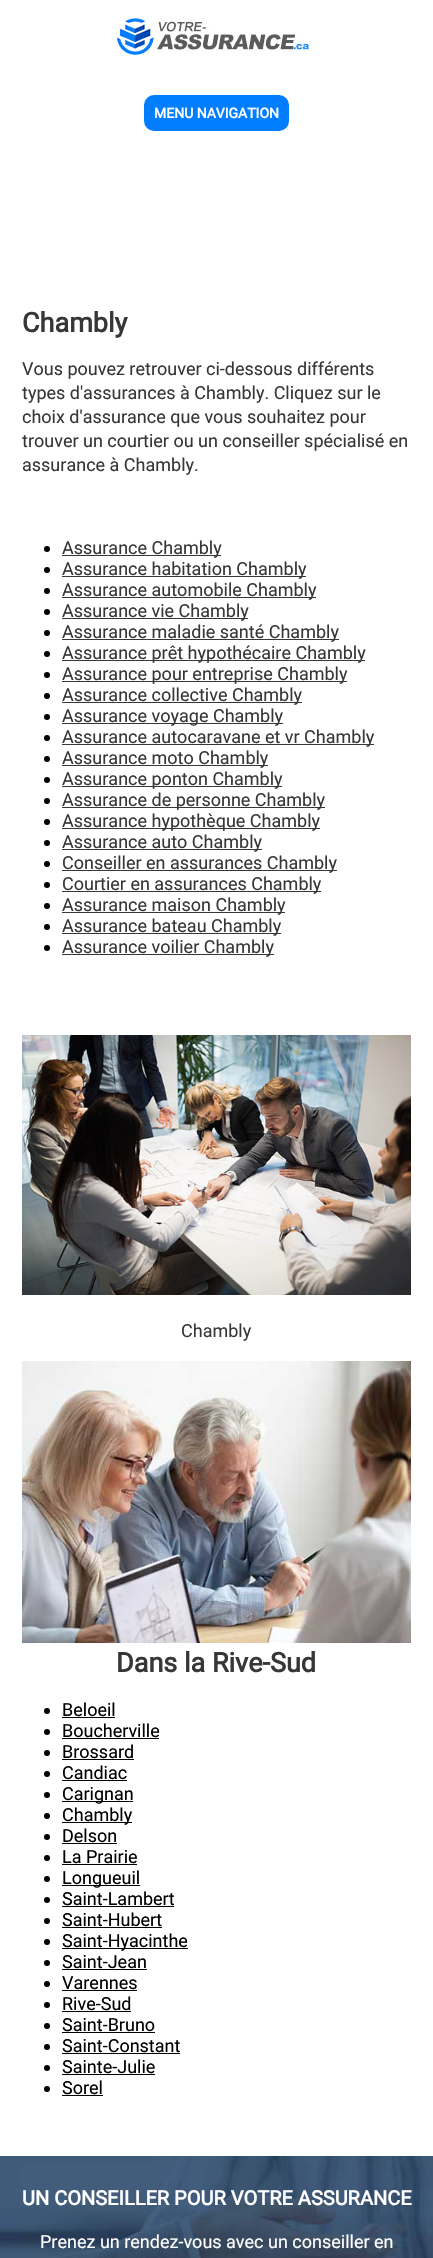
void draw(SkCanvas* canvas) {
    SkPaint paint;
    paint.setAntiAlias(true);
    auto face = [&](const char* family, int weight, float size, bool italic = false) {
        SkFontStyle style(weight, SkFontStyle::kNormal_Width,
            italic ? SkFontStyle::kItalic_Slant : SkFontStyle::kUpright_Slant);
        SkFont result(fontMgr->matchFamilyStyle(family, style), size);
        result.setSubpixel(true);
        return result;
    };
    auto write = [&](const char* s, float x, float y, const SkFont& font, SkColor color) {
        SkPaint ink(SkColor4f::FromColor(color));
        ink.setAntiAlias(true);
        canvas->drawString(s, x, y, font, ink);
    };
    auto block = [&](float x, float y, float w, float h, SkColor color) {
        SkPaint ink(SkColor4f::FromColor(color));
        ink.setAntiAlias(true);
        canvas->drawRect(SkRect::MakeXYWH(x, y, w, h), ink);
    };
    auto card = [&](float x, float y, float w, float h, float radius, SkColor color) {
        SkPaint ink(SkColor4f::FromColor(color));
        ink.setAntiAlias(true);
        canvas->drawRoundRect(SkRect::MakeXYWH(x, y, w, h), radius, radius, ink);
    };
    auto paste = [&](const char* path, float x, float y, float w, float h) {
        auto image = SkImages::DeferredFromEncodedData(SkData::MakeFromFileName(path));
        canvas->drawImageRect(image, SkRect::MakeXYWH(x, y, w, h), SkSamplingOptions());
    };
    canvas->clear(SK_ColorWHITE);
    paste("pic1.png", 117, 16, 192, 40);
    card(144, 95, 145, 36, 10, SkColorSetRGB(0, 126, 255));
    auto kFont1 = face("Roboto", 700, 14);
    write("MENU NAVIGATION", 154, 118, kFont1, SK_ColorWHITE);
    auto kFont2 = face("Roboto", 700, 27);
    write("Chambly", 22, 332, kFont2, SkColorSetRGB(55, 55, 55));
    auto kFont3 = face("Roboto", 400, 18);
    write("Vous pouvez retrouver ci-dessous différents", 22, 375, kFont3, SkColorSetRGB(55, 55, 55));
    write("types d'assurances à Chambly. Cliquez sur le", 22, 399, kFont3, SkColorSetRGB(55, 55, 55));
    write("choix d'assurance que vous souhaitez pour", 22, 423, kFont3, SkColorSetRGB(55, 55, 55));
    write("trouver un courtier ou un conseiller spécialisé en", 22, 447, kFont3, SkColorSetRGB(55, 55, 55));
    write("assurance à Chambly.", 22, 471, kFont3, SkColorSetRGB(55, 55, 55));
    paint.setColor(SK_ColorBLACK);
    canvas->drawCircle(47, 549, 3, paint);
    block(62, 555, 159, 1, SkColorSetRGB(55, 55, 55));
    write("Assurance Chambly", 62, 554, kFont3, SkColorSetRGB(55, 55, 55));
    canvas->drawCircle(47, 570, 3, paint);
    block(62, 576, 244, 1, SkColorSetRGB(55, 55, 55));
    write("Assurance habitation Chambly", 62, 575, kFont3, SkColorSetRGB(55, 55, 55));
    canvas->drawCircle(47, 591, 3, paint);
    block(62, 597, 254, 1, SkColorSetRGB(55, 55, 55));
    write("Assurance automobile Chambly", 62, 596, kFont3, SkColorSetRGB(55, 55, 55));
    canvas->drawCircle(47, 612, 3, paint);
    block(62, 618, 186, 1, SkColorSetRGB(55, 55, 55));
    write("Assurance vie Chambly", 62, 617, kFont3, SkColorSetRGB(55, 55, 55));
    canvas->drawCircle(47, 633, 3, paint);
    block(62, 639, 277, 1, SkColorSetRGB(55, 55, 55));
    write("Assurance maladie santé Chambly", 62, 638, kFont3, SkColorSetRGB(55, 55, 55));
    canvas->drawCircle(47, 654, 3, paint);
    block(62, 660, 303, 1, SkColorSetRGB(55, 55, 55));
    write("Assurance prêt hypothécaire Chambly", 62, 659, kFont3, SkColorSetRGB(55, 55, 55));
    canvas->drawCircle(47, 675, 3, paint);
    block(62, 681, 285, 1, SkColorSetRGB(55, 55, 55));
    write("Assurance pour entreprise Chambly", 62, 680, kFont3, SkColorSetRGB(55, 55, 55));
    canvas->drawCircle(47, 696, 3, paint);
    block(62, 702, 240, 1, SkColorSetRGB(55, 55, 55));
    write("Assurance collective Chambly", 62, 701, kFont3, SkColorSetRGB(55, 55, 55));
    canvas->drawCircle(47, 717, 3, paint);
    block(62, 723, 221, 1, SkColorSetRGB(55, 55, 55));
    write("Assurance voyage Chambly", 62, 722, kFont3, SkColorSetRGB(55, 55, 55));
    canvas->drawCircle(47, 738, 3, paint);
    block(62, 744, 312, 1, SkColorSetRGB(55, 55, 55));
    write("Assurance autocaravane et vr Chambly", 62, 743, kFont3, SkColorSetRGB(55, 55, 55));
    canvas->drawCircle(47, 759, 3, paint);
    block(62, 765, 206, 1, SkColorSetRGB(55, 55, 55));
    write("Assurance moto Chambly", 62, 764, kFont3, SkColorSetRGB(55, 55, 55));
    canvas->drawCircle(47, 780, 3, paint);
    block(62, 786, 220, 1, SkColorSetRGB(55, 55, 55));
    write("Assurance ponton Chambly", 62, 785, kFont3, SkColorSetRGB(55, 55, 55));
    canvas->drawCircle(47, 801, 3, paint);
    block(62, 807, 263, 1, SkColorSetRGB(55, 55, 55));
    write("Assurance de personne Chambly", 62, 806, kFont3, SkColorSetRGB(55, 55, 55));
    canvas->drawCircle(47, 822, 3, paint);
    block(62, 828, 258, 1, SkColorSetRGB(55, 55, 55));
    write("Assurance hypothèque Chambly", 62, 827, kFont3, SkColorSetRGB(55, 55, 55));
    canvas->drawCircle(47, 843, 3, paint);
    block(62, 849, 200, 1, SkColorSetRGB(55, 55, 55));
    write("Assurance auto Chambly", 62, 848, kFont3, SkColorSetRGB(55, 55, 55));
    canvas->drawCircle(47, 864, 3, paint);
    block(62, 870, 275, 1, SkColorSetRGB(55, 55, 55));
    write("Conseiller en assurances Chambly", 62, 869, kFont3, SkColorSetRGB(55, 55, 55));
    canvas->drawCircle(47, 885, 3, paint);
    block(62, 891, 259, 1, SkColorSetRGB(55, 55, 55));
    write("Courtier en assurances Chambly", 62, 890, kFont3, SkColorSetRGB(55, 55, 55));
    canvas->drawCircle(47, 906, 3, paint);
    block(62, 912, 223, 1, SkColorSetRGB(55, 55, 55));
    write("Assurance maison Chambly", 62, 911, kFont3, SkColorSetRGB(55, 55, 55));
    canvas->drawCircle(47, 927, 3, paint);
    block(62, 933, 219, 1, SkColorSetRGB(55, 55, 55));
    write("Assurance bateau Chambly", 62, 932, kFont3, SkColorSetRGB(55, 55, 55));
    canvas->drawCircle(47, 948, 3, paint);
    block(62, 954, 212, 1, SkColorSetRGB(55, 55, 55));
    write("Assurance voilier Chambly", 62, 953, kFont3, SkColorSetRGB(55, 55, 55));
    paste("pic2.png", 22, 1035, 389, 260);
    write("Chambly", 181, 1337, kFont3, SkColorSetRGB(55, 55, 55));
    paste("pic3.png", 22, 1361, 389, 282);
    write("Dans la Rive-Sud", 116, 1672, kFont2, SkColorSetRGB(55, 55, 55));
    canvas->drawCircle(47, 1711, 3, paint);
    write("Beloeil", 62, 1716, kFont3, SK_ColorBLACK);
    block(62, 1717, 53, 1, SK_ColorBLACK);
    canvas->drawCircle(47, 1732, 3, paint);
    write("Boucherville", 62, 1737, kFont3, SK_ColorBLACK);
    block(62, 1738, 97, 1, SK_ColorBLACK);
    canvas->drawCircle(47, 1753, 3, paint);
    write("Brossard", 62, 1758, kFont3, SK_ColorBLACK);
    block(62, 1759, 72, 1, SK_ColorBLACK);
    canvas->drawCircle(47, 1774, 3, paint);
    write("Candiac", 62, 1779, kFont3, SK_ColorBLACK);
    block(62, 1780, 65, 1, SK_ColorBLACK);
    canvas->drawCircle(47, 1795, 3, paint);
    block(62, 1801, 71, 1, SK_ColorBLACK);
    write("Carignan", 62, 1800, kFont3, SK_ColorBLACK);
    canvas->drawCircle(47, 1816, 3, paint);
    block(62, 1822, 70, 1, SK_ColorBLACK);
    write("Chambly", 62, 1821, kFont3, SK_ColorBLACK);
    canvas->drawCircle(47, 1837, 3, paint);
    write("Delson", 62, 1842, kFont3, SK_ColorBLACK);
    block(62, 1843, 55, 1, SK_ColorBLACK);
    canvas->drawCircle(47, 1858, 3, paint);
    write("La Prairie", 62, 1863, kFont3, SK_ColorBLACK);
    block(62, 1864, 75, 1, SK_ColorBLACK);
    canvas->drawCircle(47, 1879, 3, paint);
    block(62, 1885, 78, 1, SK_ColorBLACK);
    write("Longueuil", 62, 1884, kFont3, SK_ColorBLACK);
    canvas->drawCircle(47, 1900, 3, paint);
    write("Saint-Lambert", 62, 1905, kFont3, SK_ColorBLACK);
    block(62, 1906, 112, 1, SK_ColorBLACK);
    canvas->drawCircle(47, 1921, 3, paint);
    write("Saint-Hubert", 62, 1926, kFont3, SK_ColorBLACK);
    block(62, 1927, 100, 1, SK_ColorBLACK);
    canvas->drawCircle(47, 1942, 3, paint);
    block(62, 1948, 126, 1, SK_ColorBLACK);
    write("Saint-Hyacinthe", 62, 1947, kFont3, SK_ColorBLACK);
    canvas->drawCircle(47, 1963, 3, paint);
    write("Saint-Jean", 62, 1968, kFont3, SK_ColorBLACK);
    block(62, 1969, 85, 1, SK_ColorBLACK);
    canvas->drawCircle(47, 1984, 3, paint);
    write("Varennes", 62, 1989, kFont3, SK_ColorBLACK);
    block(62, 1990, 75, 1, SK_ColorBLACK);
    canvas->drawCircle(47, 2005, 3, paint);
    write("Rive-Sud", 62, 2010, kFont3, SK_ColorBLACK);
    block(62, 2011, 69, 1, SK_ColorBLACK);
    canvas->drawCircle(47, 2026, 3, paint);
    write("Saint-Bruno", 62, 2031, kFont3, SK_ColorBLACK);
    block(62, 2032, 93, 1, SK_ColorBLACK);
    canvas->drawCircle(47, 2047, 3, paint);
    write("Saint-Constant", 62, 2052, kFont3, SK_ColorBLACK);
    block(62, 2053, 118, 1, SK_ColorBLACK);
    canvas->drawCircle(47, 2068, 3, paint);
    write("Sainte-Julie", 62, 2073, kFont3, SK_ColorBLACK);
    block(62, 2074, 93, 1, SK_ColorBLACK);
    canvas->drawCircle(47, 2089, 3, paint);
    write("Sorel", 62, 2094, kFont3, SK_ColorBLACK);
    block(62, 2095, 41, 1, SK_ColorBLACK);
    paste("pic4.png", 0, 2156, 433, 102);
    auto kFont4 = face("Roboto", 700, 20);
    write("UN CONSEILLER POUR VOTRE ASSURANCE", 22, 2205, kFont4, SK_ColorWHITE);
    write("Prenez un rendez-vous avec un conseiller en", 40, 2248, kFont3, SK_ColorWHITE);
}
